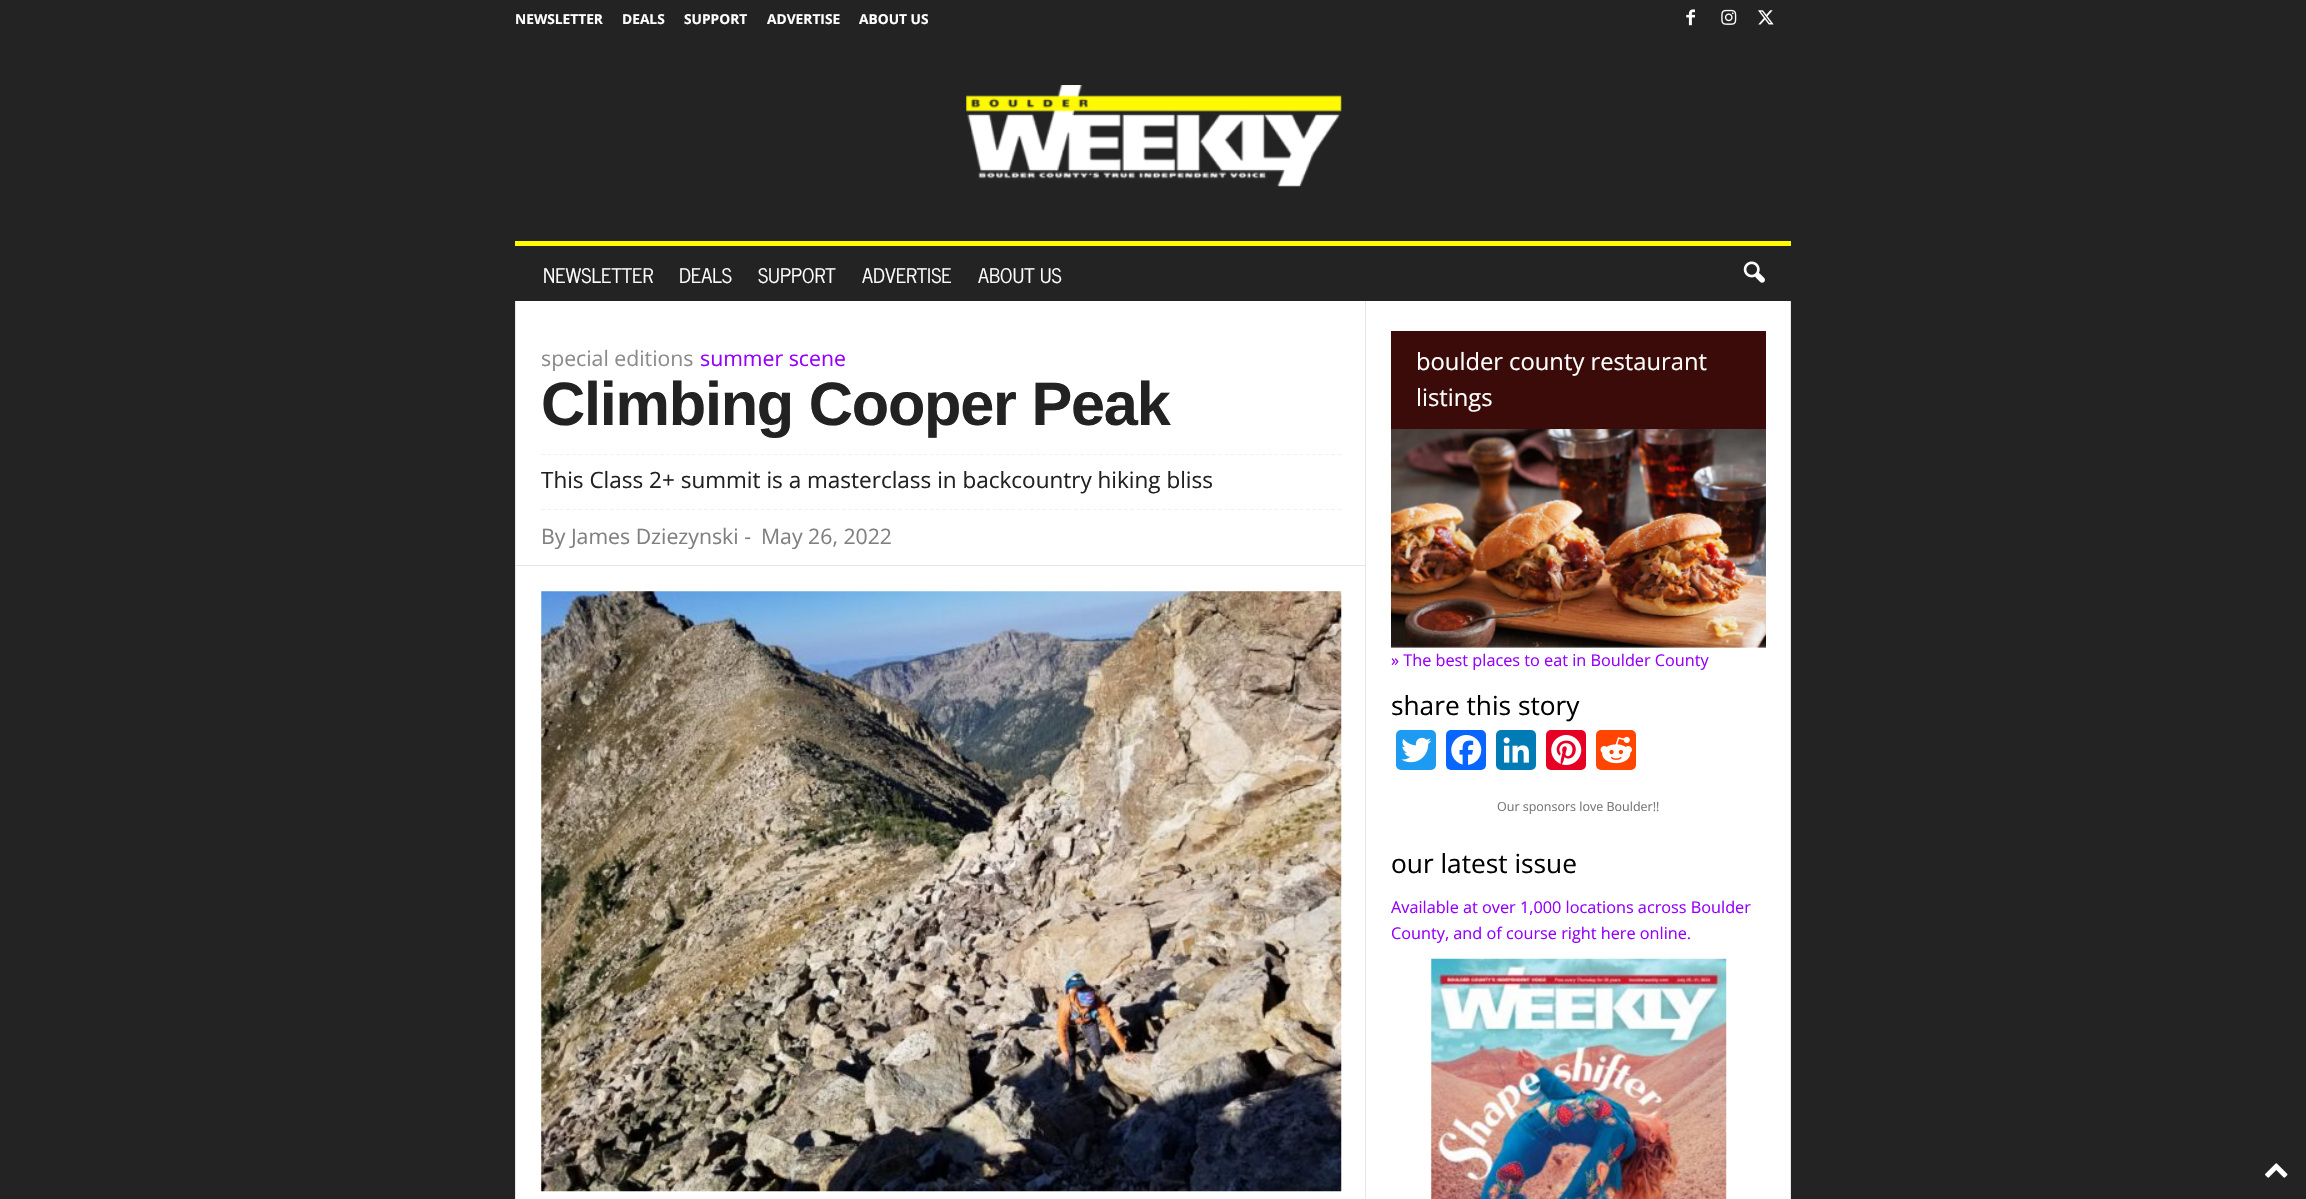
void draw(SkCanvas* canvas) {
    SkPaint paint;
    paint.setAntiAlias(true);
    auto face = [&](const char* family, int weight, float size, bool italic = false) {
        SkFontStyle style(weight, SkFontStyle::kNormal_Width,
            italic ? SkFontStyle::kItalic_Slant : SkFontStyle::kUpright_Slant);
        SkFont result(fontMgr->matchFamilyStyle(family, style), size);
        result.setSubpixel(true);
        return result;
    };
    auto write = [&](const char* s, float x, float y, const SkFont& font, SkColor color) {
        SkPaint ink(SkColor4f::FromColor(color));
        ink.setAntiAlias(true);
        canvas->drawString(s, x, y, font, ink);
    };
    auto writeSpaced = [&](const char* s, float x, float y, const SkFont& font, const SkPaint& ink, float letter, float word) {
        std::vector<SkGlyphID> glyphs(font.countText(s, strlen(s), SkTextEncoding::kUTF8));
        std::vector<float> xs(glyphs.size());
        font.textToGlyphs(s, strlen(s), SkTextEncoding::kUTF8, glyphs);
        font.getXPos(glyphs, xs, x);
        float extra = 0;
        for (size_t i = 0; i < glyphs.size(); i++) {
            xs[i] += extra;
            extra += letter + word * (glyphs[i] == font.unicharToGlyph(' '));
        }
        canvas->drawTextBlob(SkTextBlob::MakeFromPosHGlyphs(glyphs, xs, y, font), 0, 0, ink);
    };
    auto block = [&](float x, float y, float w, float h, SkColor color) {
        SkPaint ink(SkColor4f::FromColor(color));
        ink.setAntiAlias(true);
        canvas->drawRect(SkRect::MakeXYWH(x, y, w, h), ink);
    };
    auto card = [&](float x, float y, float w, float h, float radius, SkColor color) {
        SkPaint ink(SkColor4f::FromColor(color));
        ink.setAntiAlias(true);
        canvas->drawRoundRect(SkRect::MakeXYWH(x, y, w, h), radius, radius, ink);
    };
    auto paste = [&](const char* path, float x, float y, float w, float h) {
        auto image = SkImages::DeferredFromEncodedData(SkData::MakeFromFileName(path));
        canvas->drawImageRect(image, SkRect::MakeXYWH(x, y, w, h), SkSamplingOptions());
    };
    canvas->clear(SkColorSetRGB(35, 35, 35));
    auto kFont1 = face("Open Sans", 700, 13.75f);
    write("NEWSLETTER", 515, 24, kFont1, SK_ColorWHITE);
    write("DEALS", 622, 24, kFont1, SK_ColorWHITE);
    write("SUPPORT", 684, 24, kFont1, SK_ColorWHITE);
    write("ADVERTISE", 767, 24, kFont1, SK_ColorWHITE);
    write("ABOUT US", 859, 24, kFont1, SK_ColorWHITE);
    paste("pic1.png", 1686, 9, 9, 17);
    paste("pic2.png", 1721, 9, 16, 16);
    paste("pic3.png", 1758, 10, 16, 15);
    paste("pic4.png", 966, 85, 376, 102);
    block(515, 241, 1276, 5, SkColorSetRGB(255, 250, 0));
    auto kFont2 = face("News Cycle", 400, 20);
    write("NEWSLETTER", 543, 283, kFont2, SK_ColorWHITE);
    write("DEALS", 679, 283, kFont2, SK_ColorWHITE);
    write("SUPPORT", 758, 283, kFont2, SK_ColorWHITE);
    write("ADVERTISE", 862, 283, kFont2, SK_ColorWHITE);
    write("ABOUT US", 978, 283, kFont2, SK_ColorWHITE);
    paste("pic5.png", 1743, 261, 22, 22);
    block(516, 301, 1274, 898, SK_ColorWHITE);
    block(515, 301, 1, 898, SkColorSetRGB(230, 230, 230));
    auto kFont3 = face("Open Sans", 400, 21.25f);
    write("special editions", 541, 366, kFont3, SkColorSetRGB(140, 140, 140));
    write("summer scene", 700, 366, kFont3, SkColorSetRGB(150, 0, 255));
    auto kFont4 = face("Liberation Sans", 700, 61.25f);
    paint.setColor(SkColorSetRGB(34, 34, 34));
    writeSpaced("Climbing Cooper Peak", 541, 425, kFont4, paint, -1.25f, 0);
    paint.setStyle(SkPaint::kStroke_Style);
    paint.setStrokeWidth(1.2f);
    paint.setColor(SkColorSetRGB(241, 241, 241));
    paint.setPathEffect(SkDashPathEffect::Make({{3.75f, 2.52f}}, 0));
    canvas->drawPath(SkPathBuilder().moveTo(541, 454.5f).lineTo(1341, 454.5f).detach(), paint);
    paint.setPathEffect(nullptr);
    paint.setPathEffect(SkDashPathEffect::Make({{3.75f, 2.52f}}, 0));
    canvas->drawPath(SkPathBuilder().moveTo(541, 509.5f).lineTo(1341, 509.5f).detach(), paint);
    paint.setPathEffect(nullptr);
    auto kFont5 = face("Open Sans", 400, 22.5f);
    write("This Class 2+ summit is a masterclass in backcountry hiking bliss", 541, 488, kFont5, SkColorSetRGB(34, 34, 34));
    write("By James Dziezynski -", 541, 544, kFont3, SkColorSetRGB(128, 128, 128));
    write("May 26, 2022", 761, 544, kFont3, SkColorSetRGB(128, 128, 128));
    block(516, 565, 849, 1, SkColorSetRGB(230, 230, 230));
    paste("pic6.png", 541, 591, 801, 601);
    block(1365, 301, 1, 898, SkColorSetRGB(230, 230, 230));
    block(1391, 331, 375, 98, SkColorSetRGB(59, 11, 9));
    auto kFont6 = face("Open Sans", 400, 23.75f);
    write("boulder county restaurant", 1416, 370, kFont6, SK_ColorWHITE);
    write("listings", 1416, 406, kFont6, SK_ColorWHITE);
    paste("pic7.png", 1391, 429, 375, 219);
    auto kFont7 = face("Open Sans", 400, 16.25f);
    write("» The best places to eat in Boulder County", 1391, 666, kFont7, SkColorSetRGB(150, 0, 255));
    auto kFont8 = face("Open Sans", 400, 26.25f);
    write("share this story", 1391, 715, kFont8, SK_ColorBLACK);
    card(1396, 730, 40, 40, 5, SkColorSetRGB(29, 155, 240));
    paste("pic8.png", 1401, 737, 31, 26);
    card(1446, 730, 40, 40, 5, SkColorSetRGB(8, 102, 255));
    paste("pic9.png", 1451, 735, 31, 30);
    card(1496, 730, 40, 40, 5, SkColorSetRGB(0, 123, 181));
    paste("pic10.png", 1503, 737, 26, 26);
    card(1546, 730, 40, 40, 5, SkColorSetRGB(230, 0, 35));
    paste("pic11.png", 1551, 735, 31, 30);
    card(1596, 730, 40, 40, 5, SkColorSetRGB(255, 69, 0));
    paste("pic12.png", 1600, 736, 32, 28);
    auto kFont9 = face("Open Sans", 400, 12.5f);
    write("Our sponsors love Boulder!!", 1497, 811, kFont9, SkColorSetRGB(118, 118, 118));
    write("our latest issue", 1391, 873, kFont8, SK_ColorBLACK);
    write("Available at over 1,000 locations across Boulder", 1391, 913, kFont7, SkColorSetRGB(150, 0, 255));
    write("County, and of course right here online.", 1391, 939, kFont7, SkColorSetRGB(150, 0, 255));
    paste("pic13.png", 1431, 958, 296, 241);
    block(1790, 301, 1, 898, SkColorSetRGB(230, 230, 230));
    paste("pic14.png", 2265, 1163, 23, 15);
}
